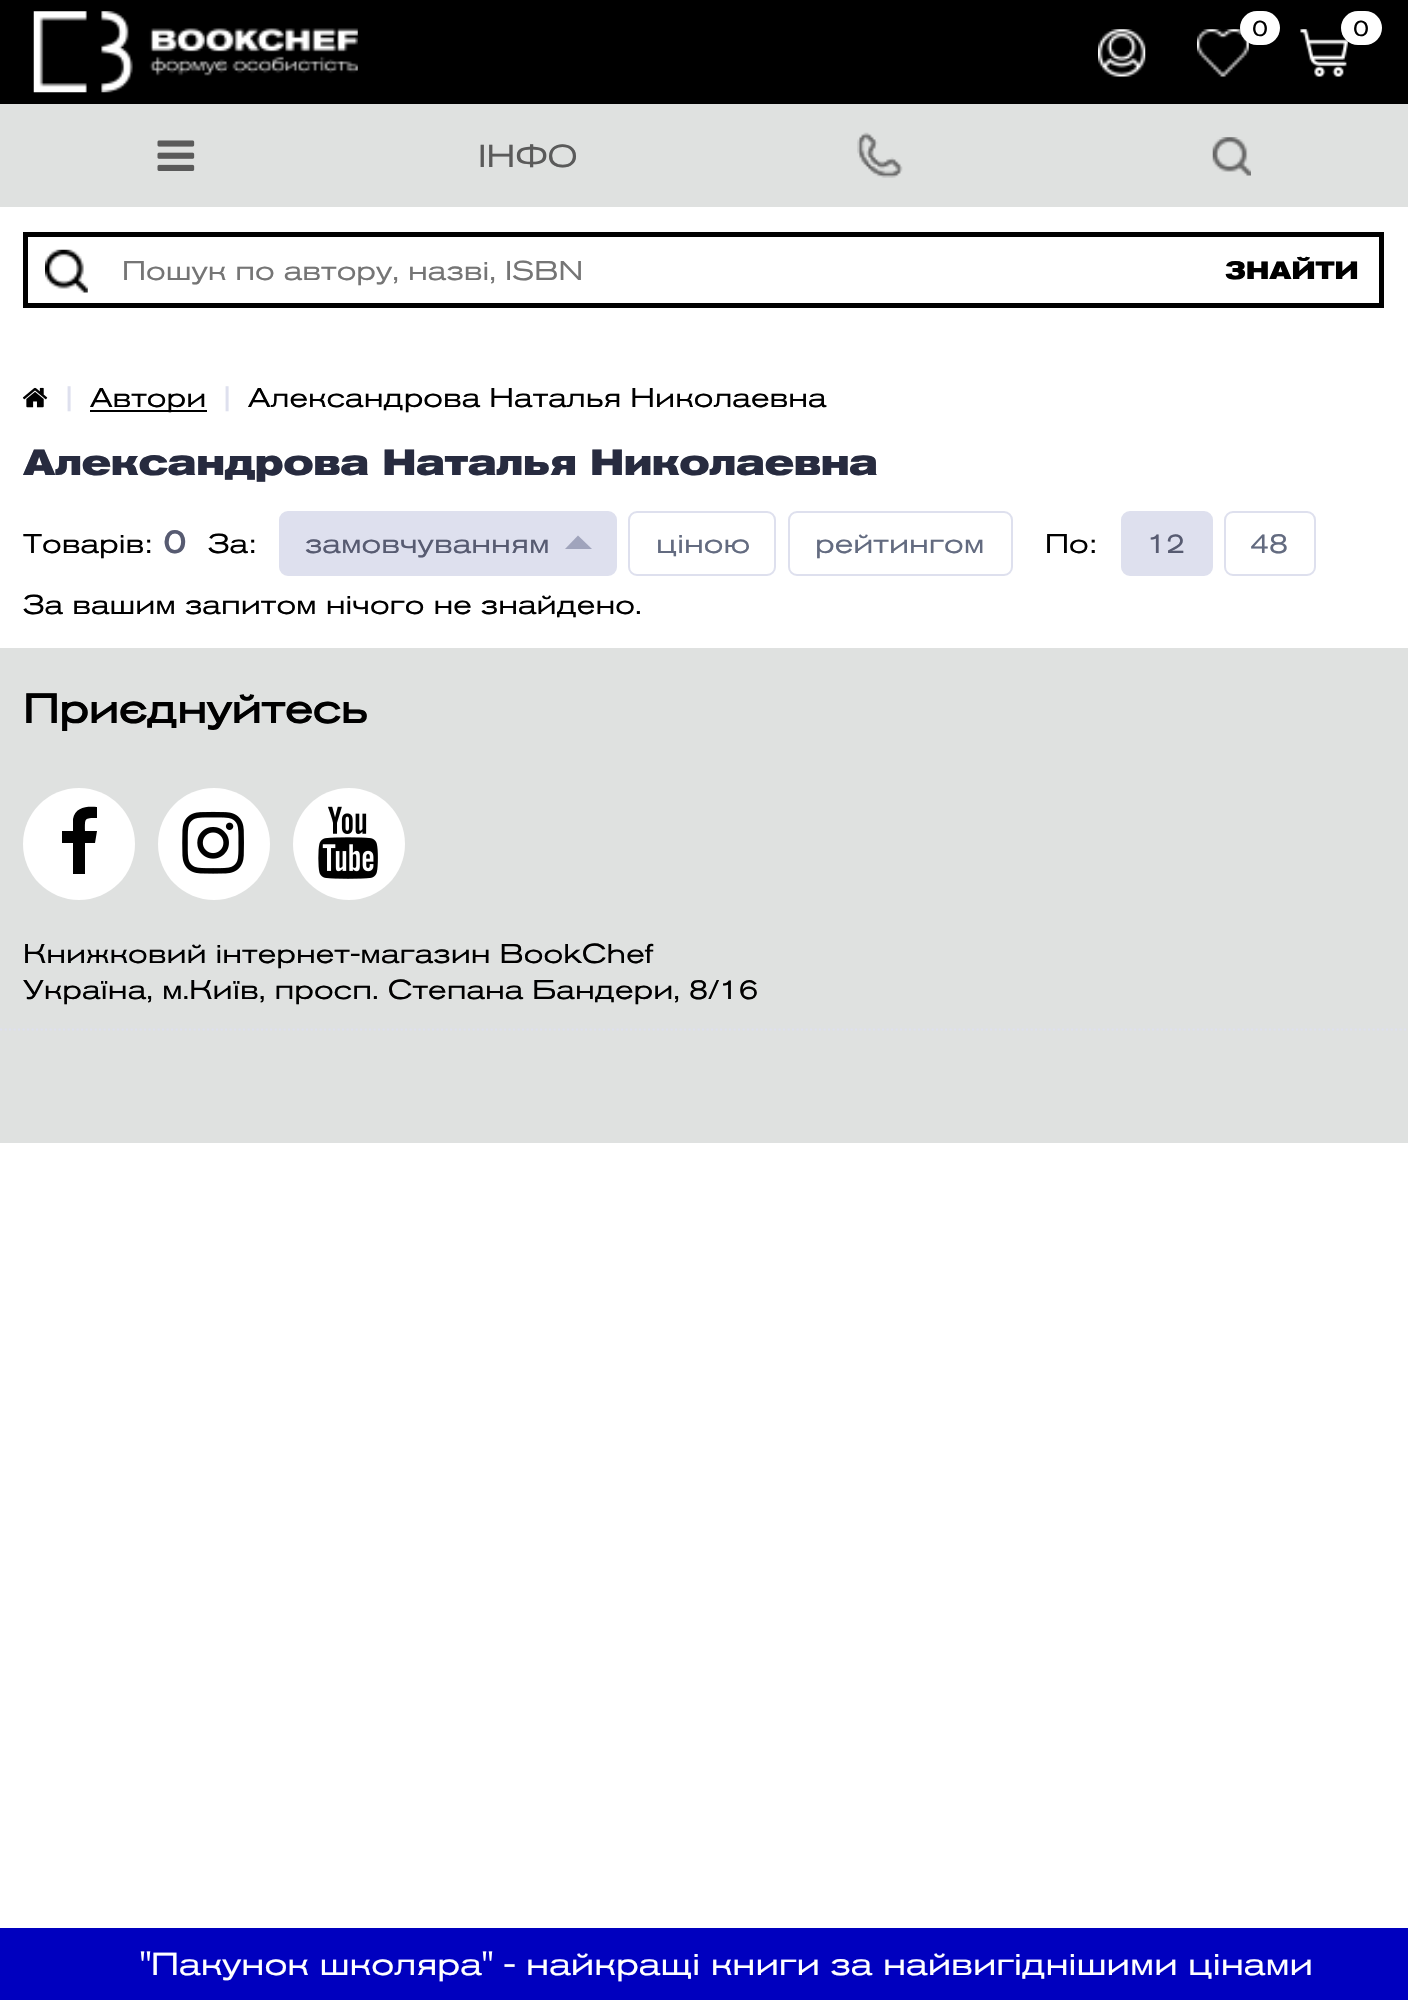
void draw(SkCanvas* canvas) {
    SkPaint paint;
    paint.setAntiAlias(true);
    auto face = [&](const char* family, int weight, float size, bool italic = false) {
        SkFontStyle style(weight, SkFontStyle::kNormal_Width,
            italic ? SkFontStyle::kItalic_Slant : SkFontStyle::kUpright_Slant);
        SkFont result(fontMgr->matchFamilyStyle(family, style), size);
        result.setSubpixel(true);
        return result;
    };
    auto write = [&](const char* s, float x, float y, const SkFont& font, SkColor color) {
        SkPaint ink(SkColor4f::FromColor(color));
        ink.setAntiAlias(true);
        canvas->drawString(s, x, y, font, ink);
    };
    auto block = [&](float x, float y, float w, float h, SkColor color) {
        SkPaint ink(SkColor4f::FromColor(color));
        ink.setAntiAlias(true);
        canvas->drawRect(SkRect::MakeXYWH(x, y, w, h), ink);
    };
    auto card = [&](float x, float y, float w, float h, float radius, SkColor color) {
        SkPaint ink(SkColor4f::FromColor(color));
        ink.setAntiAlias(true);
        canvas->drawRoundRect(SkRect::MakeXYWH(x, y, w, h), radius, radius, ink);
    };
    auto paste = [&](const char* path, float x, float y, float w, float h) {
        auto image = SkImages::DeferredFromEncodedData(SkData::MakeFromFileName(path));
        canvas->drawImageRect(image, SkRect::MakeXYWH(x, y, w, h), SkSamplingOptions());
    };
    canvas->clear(SK_ColorWHITE);
    block(0, 648, 1408, 495, SkColorSetRGB(223, 225, 224));
    block(0, 0, 1408, 104, SK_ColorBLACK);
    paste("pic1.png", 33, 11, 325, 82);
    paste("pic2.png", 1098, 29, 48, 48);
    paste("pic3.png", 1197, 29, 52, 48);
    card(1240, 11, 40, 34, 17, SK_ColorWHITE);
    auto kFont1 = face("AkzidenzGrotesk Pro", 400, 22);
    write("0", 1252, 36, kFont1, SK_ColorBLACK);
    paste("pic4.png", 1300, 29, 48, 48);
    card(1341, 11, 41, 34, 17, SK_ColorWHITE);
    write("0", 1353, 36, kFont1, SK_ColorBLACK);
    paint.setStyle(SkPaint::kStroke_Style);
    paint.setStrokeWidth(2.2f);
    paint.setColor(SkColorSetRGB(222, 224, 238));
    paint.setPathEffect(SkDashPathEffect::Make({{2.25f, 2.25f}}, 0));
    canvas->drawPath(SkPathBuilder().moveTo(0, 1029.5f).lineTo(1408.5f, 1029.5f).detach(), paint);
    paint.setPathEffect(nullptr);
    auto kFont2 = face("AkzidenzGrotesk Pro", 700, 40.5f);
    write("Приєднуйтесь", 23, 723, kFont2, SK_ColorBLACK);
    paint.setStyle(SkPaint::kFill_Style);
    paint.setColor(SK_ColorWHITE);
    canvas->drawCircle(79, 844, 56, paint);
    paint.setColor(SK_ColorBLACK);
    canvas->drawPath(SkPathBuilder().moveTo(97, 807).lineTo(97, 818).cubicTo(84, 818, 85, 818, 85, 831).lineTo(97, 831).lineTo(95, 843).lineTo(85, 843).lineTo(85, 874).lineTo(73, 874).lineTo(73, 843).lineTo(62, 843).lineTo(62, 831).lineTo(73, 831).lineTo(73, 819).cubicTo(75, 807, 87, 806, 97, 807).close().detach(), paint);
    paint.setColor(SK_ColorWHITE);
    canvas->drawCircle(214, 844, 56, paint);
    paste("pic5.png", 182, 811, 62, 63);
    canvas->drawCircle(349, 844, 56, paint);
    paste("pic6.png", 318, 806, 60, 73);
    auto kFont3 = face("AkzidenzGrotesk Pro", 400, 27);
    write("Книжковий інтернет-магазин BookChef", 23, 963, kFont3, SK_ColorBLACK);
    write("Україна, м.Київ, просп. Степана Бандери, 8/16", 23, 999, kFont3, SK_ColorBLACK);
    block(0, 104, 1408, 103, SkColorSetRGB(223, 225, 224));
    paste("pic7.png", 157, 140, 38, 31);
    auto kFont4 = face("AkzidenzGrotesk Pro", 400, 31.5f);
    write("ІНФО", 478, 167, kFont4, SkColorSetRGB(90, 90, 90));
    paste("pic8.png", 857, 132, 46, 46);
    paste("pic9.png", 1212, 137, 39, 39);
    paint.setStyle(SkPaint::kStroke_Style);
    paint.setStrokeWidth(5);
    paint.setColor(SK_ColorBLACK);
    canvas->drawRect(SkRect::MakeXYWH(25.5f, 234.5f, 1356, 71), paint);
    paste("pic10.png", 45, 249, 43, 44);
    write("Пошук по автору, назві, ISBN", 122, 280, kFont3, SkColorSetRGB(117, 117, 117));
    auto kFont5 = face("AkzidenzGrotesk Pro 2", 700, 24.75f);
    write("ЗНАЙТИ", 1225, 279, kFont5, SK_ColorBLACK);
    paste("pic11.png", 22, 387, 26, 21);
    write("|", 66, 407, kFont3, SkColorSetRGB(222, 224, 238));
    block(90, 410, 117, 2, SK_ColorBLACK);
    write("Автори", 90, 407, kFont3, SK_ColorBLACK);
    write("|", 224, 407, kFont3, SkColorSetRGB(222, 224, 238));
    write("Александрова Наталья Николаевна", 248, 407, kFont3, SK_ColorBLACK);
    auto kFont6 = face("AkzidenzGrotesk Pro 2", 700, 36);
    write("Александрова Наталья Николаевна", 23, 475, kFont6, SkColorSetRGB(39, 43, 63));
    write("Товарів:", 23, 553, kFont3, SK_ColorBLACK);
    auto kFont7 = face("AkzidenzGrotesk Pro", 700, 31.5f);
    write("0", 163, 553, kFont7, SkColorSetRGB(87, 91, 113));
    write("За:", 208, 553, kFont3, SK_ColorBLACK);
    paint.setStyle(SkPaint::kFill_Style);
    paint.setColor(SkColorSetRGB(222, 224, 238));
    canvas->drawRoundRect(SkRect::MakeXYWH(280, 512, 336, 63), 8, 8, paint);
    paint.setStyle(SkPaint::kStroke_Style);
    paint.setStrokeWidth(2);
    canvas->drawRoundRect(SkRect::MakeXYWH(280, 512, 336, 63), 8, 8, paint);
    write("замовчуванням", 305, 553, kFont3, SkColorSetRGB(87, 91, 113));
    paint.setStyle(SkPaint::kFill_Style);
    paint.setColor(SkColorSetRGB(160, 164, 188));
    canvas->drawPath(SkPathBuilder().moveTo(592, 549).lineTo(565, 549).lineTo(578, 535.5f).close().detach(), paint);
    paint.setStyle(SkPaint::kStroke_Style);
    paint.setColor(SkColorSetRGB(222, 224, 238));
    canvas->drawRoundRect(SkRect::MakeXYWH(629, 512, 146, 63), 8, 8, paint);
    write("ціною", 656, 553, kFont3, SkColorSetRGB(99, 107, 128));
    canvas->drawRoundRect(SkRect::MakeXYWH(789, 512, 223, 63), 8, 8, paint);
    write("рейтингом", 815, 553, kFont3, SkColorSetRGB(99, 107, 128));
    write("По:", 1045, 553, kFont3, SK_ColorBLACK);
    paint.setStyle(SkPaint::kFill_Style);
    canvas->drawRoundRect(SkRect::MakeXYWH(1122, 512, 90, 63), 8, 8, paint);
    paint.setStyle(SkPaint::kStroke_Style);
    canvas->drawRoundRect(SkRect::MakeXYWH(1122, 512, 90, 63), 8, 8, paint);
    write("12", 1147, 553, kFont3, SkColorSetRGB(87, 91, 113));
    canvas->drawRoundRect(SkRect::MakeXYWH(1225, 512, 90, 63), 8, 8, paint);
    write("48", 1250, 553, kFont3, SkColorSetRGB(99, 107, 128));
    write("За вашим запитом нічого не знайдено.", 23, 614, kFont3, SK_ColorBLACK);
    block(0, 1928, 1408, 72, SkColorSetRGB(0, 0, 191));
    write("\"Пакунок школяра\" - найкращі книги за найвигіднішими цінами", 140, 1975, kFont4, SK_ColorWHITE);
}
